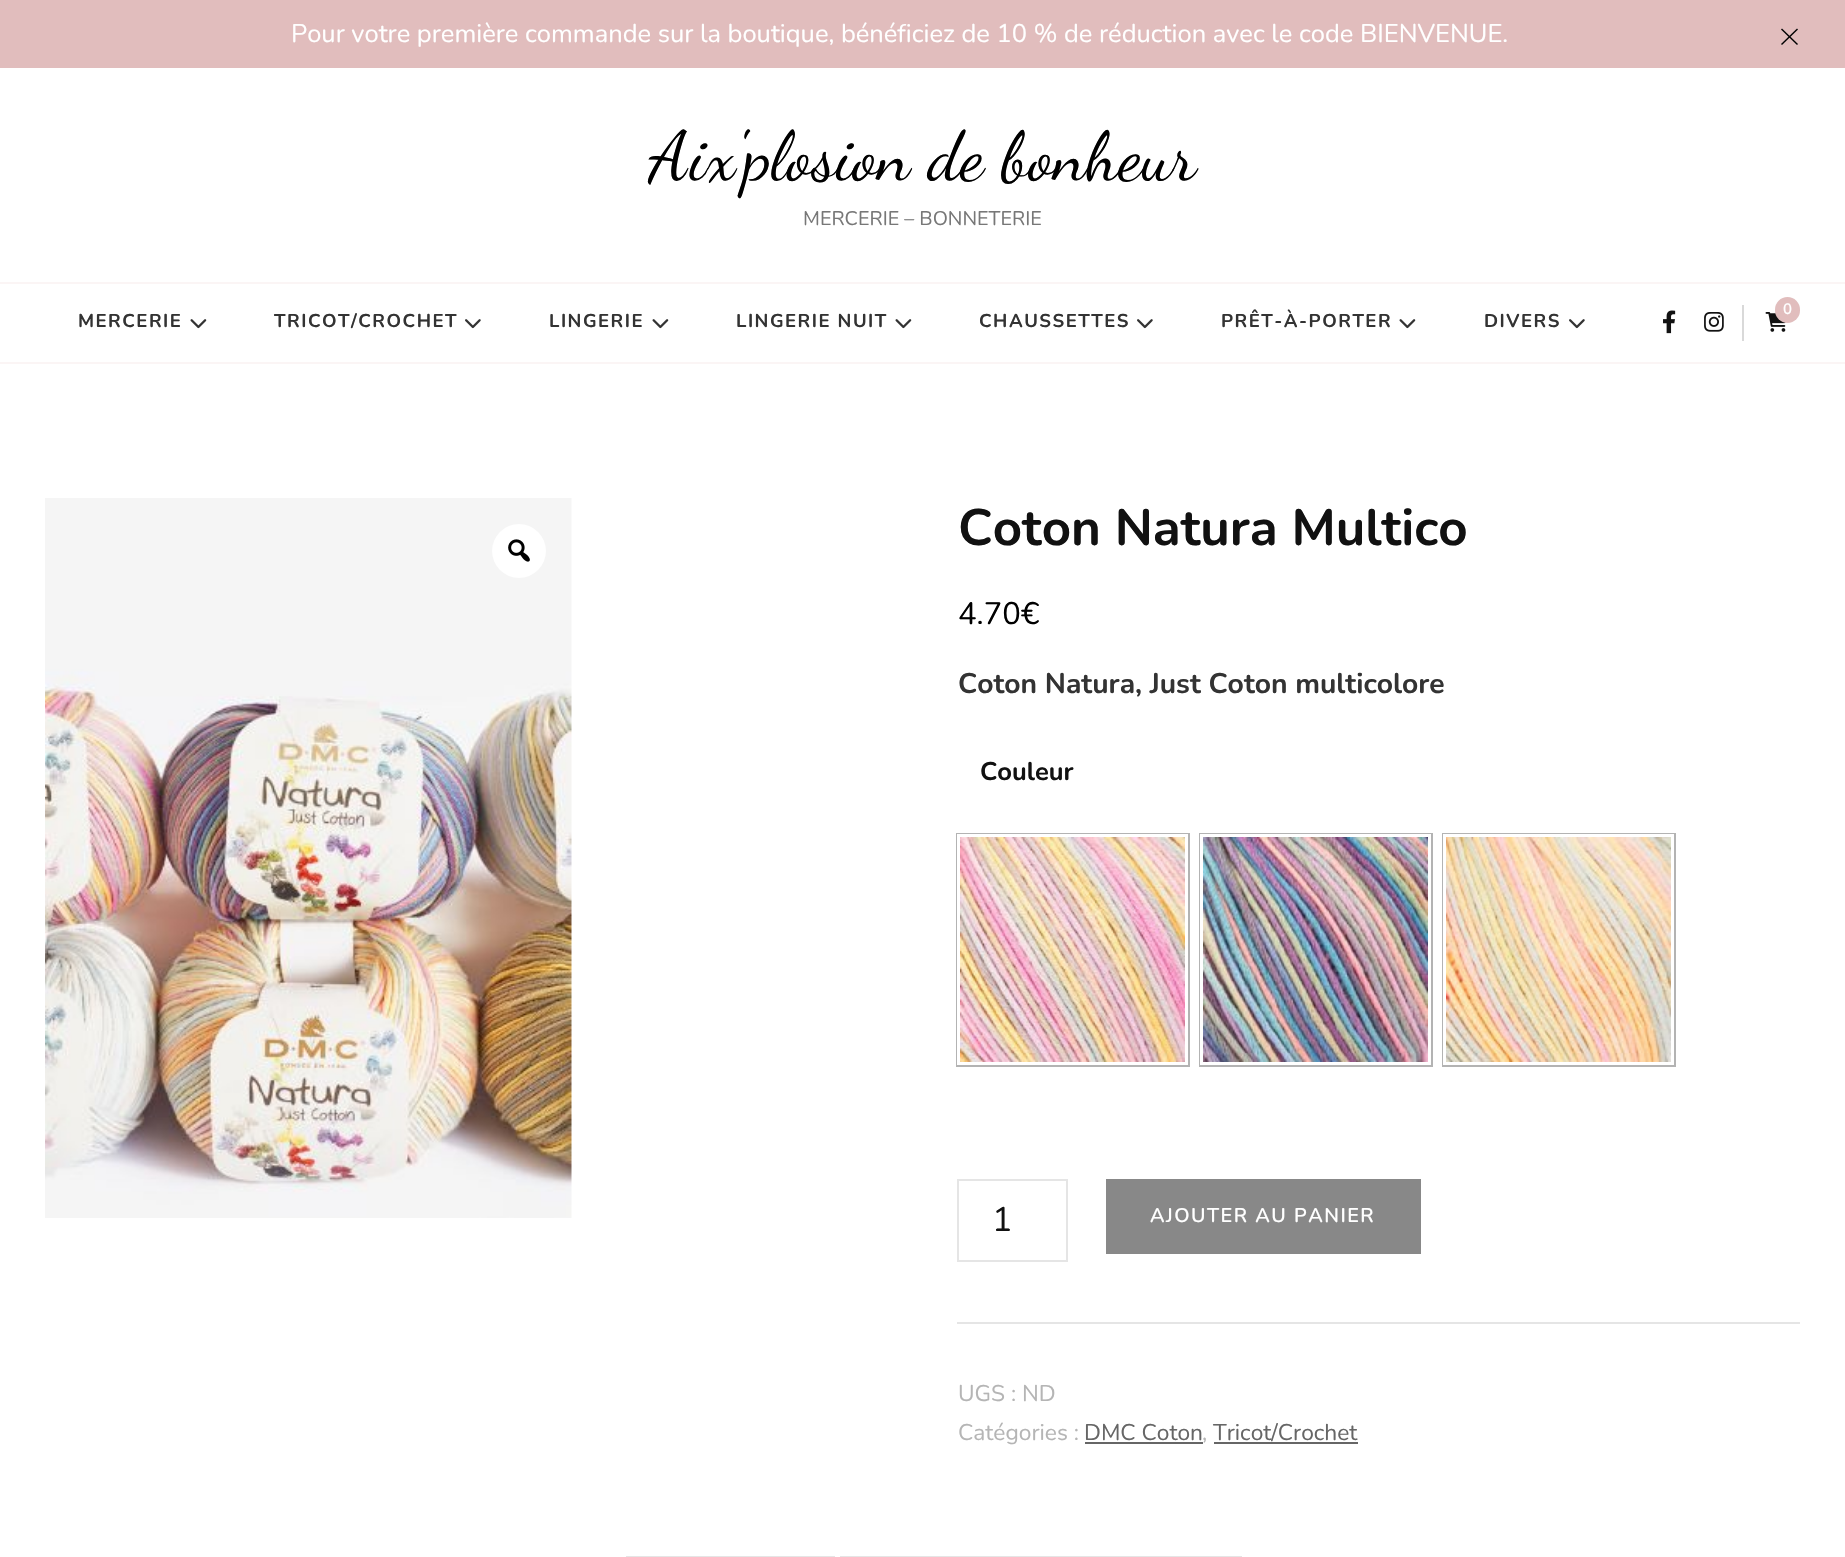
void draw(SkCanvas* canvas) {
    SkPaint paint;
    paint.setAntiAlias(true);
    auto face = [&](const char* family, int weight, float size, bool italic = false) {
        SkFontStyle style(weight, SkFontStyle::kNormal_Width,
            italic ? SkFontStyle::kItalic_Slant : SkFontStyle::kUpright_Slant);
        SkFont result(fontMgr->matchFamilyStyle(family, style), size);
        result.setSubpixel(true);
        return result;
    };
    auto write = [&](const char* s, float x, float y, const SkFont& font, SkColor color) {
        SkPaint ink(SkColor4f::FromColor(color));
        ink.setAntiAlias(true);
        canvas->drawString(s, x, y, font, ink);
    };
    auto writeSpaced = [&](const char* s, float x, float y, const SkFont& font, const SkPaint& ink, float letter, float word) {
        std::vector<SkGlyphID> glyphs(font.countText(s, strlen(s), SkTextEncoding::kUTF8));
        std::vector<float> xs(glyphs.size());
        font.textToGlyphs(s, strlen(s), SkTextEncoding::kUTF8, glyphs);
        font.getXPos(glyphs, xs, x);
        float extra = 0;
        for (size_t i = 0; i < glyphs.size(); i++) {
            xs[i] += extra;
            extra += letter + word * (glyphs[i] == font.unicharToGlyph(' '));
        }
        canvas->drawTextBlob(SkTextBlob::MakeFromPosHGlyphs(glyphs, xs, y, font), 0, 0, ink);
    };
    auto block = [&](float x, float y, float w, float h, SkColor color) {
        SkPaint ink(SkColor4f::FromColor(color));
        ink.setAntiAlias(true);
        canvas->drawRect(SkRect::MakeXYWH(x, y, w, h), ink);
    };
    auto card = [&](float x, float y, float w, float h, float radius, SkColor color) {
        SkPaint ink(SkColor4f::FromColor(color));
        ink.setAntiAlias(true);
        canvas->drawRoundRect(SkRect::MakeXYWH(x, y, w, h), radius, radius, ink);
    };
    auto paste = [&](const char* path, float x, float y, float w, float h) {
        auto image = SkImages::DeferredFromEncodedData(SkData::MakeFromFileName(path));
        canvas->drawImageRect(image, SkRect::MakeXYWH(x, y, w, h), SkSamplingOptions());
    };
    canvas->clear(SK_ColorWHITE);
    block(0, 0, 1845, 68, SkColorSetRGB(225, 189, 189));
    auto kFont1 = face("Nunito", 400, 25.5f);
    write("Pour votre première commande sur la boutique, bénéficiez de 10 % de réduction avec le code BIENVENUE.", 291, 42, kFont1, SK_ColorWHITE);
    paint.setColor(SK_ColorBLACK);
    canvas->drawPath(SkPathBuilder().moveTo(1782, 28.5f).lineTo(1798, 44).lineTo(1797, 45).lineTo(1781, 29.5f).close().detach(), paint);
    canvas->drawPath(SkPathBuilder().moveTo(1781, 44).lineTo(1797, 28.5f).lineTo(1798, 29.5f).lineTo(1782, 45).close().detach(), paint);
    auto kFont2 = face("Dancing Script", 400, 69);
    write("Aix'plosion de bonheur", 649, 179, kFont2, SK_ColorBLACK);
    auto kFont3 = face("Nunito", 400, 19.75f);
    write("MERCERIE – BONNETERIE", 803, 225, kFont3, SkColorSetRGB(119, 119, 119));
    block(0, 282, 1845, 2, SkColorSetRGB(251, 245, 245));
    block(0, 362, 1845, 2, SkColorSetRGB(251, 245, 245));
    auto kFont4 = face("Nunito", 700, 18.5f);
    paint.setColor(SkColorSetRGB(51, 51, 51));
    writeSpaced("MERCERIE", 78, 327, kFont4, paint, 1.5f, 0);
    paste("pic1.png", 190, 319, 17, 10);
    writeSpaced("TRICOT/CROCHET", 274, 327, kFont4, paint, 1.5f, 0);
    paste("pic2.png", 465, 319, 16, 10);
    writeSpaced("LINGERIE", 549, 327, kFont4, paint, 1.5f, 0);
    paste("pic1.png", 652, 319, 17, 10);
    writeSpaced("LINGERIE NUIT", 736, 327, kFont4, paint, 1.5f, 0);
    paste("pic1.png", 895, 319, 17, 10);
    writeSpaced("CHAUSSETTES", 979, 327, kFont4, paint, 1.5f, 0);
    paste("pic2.png", 1137, 319, 16, 10);
    writeSpaced("PRÊT-À-PORTER", 1221, 327, kFont4, paint, 1.5f, 0);
    paste("pic1.png", 1399, 319, 17, 10);
    writeSpaced("DIVERS", 1484, 327, kFont4, paint, 1.5f, 0);
    paste("pic2.png", 1569, 319, 16, 10);
    paste("pic3.png", 1663, 310, 13, 24);
    paste("pic4.png", 1704, 312, 20, 20);
    block(1742, 305, 2, 36, SkColorSetRGB(217, 217, 217));
    paste("pic5.png", 1765, 312, 21, 20);
    card(1775, 297, 25, 26, 12.5f, SkColorSetRGB(225, 189, 189));
    auto kFont5 = face("Nunito", 600, 15);
    write("0", 1783, 314, kFont5, SK_ColorWHITE);
    paste("pic6.png", 45, 498, 527, 720);
    paint.setColor(SK_ColorWHITE);
    canvas->drawCircle(519, 551, 27, paint);
    paste("pic7.png", 508, 539, 22, 23);
    auto kFont6 = face("Nunito", 700, 51);
    write("Coton Natura Multico", 958, 545, kFont6, SkColorSetRGB(17, 17, 17));
    auto kFont7 = face("Nunito", 400, 31);
    write("4.70€", 958, 624, kFont7, SK_ColorBLACK);
    auto kFont8 = face("Nunito", 700, 28.25f);
    write("Coton Natura, Just Coton multicolore", 958, 693, kFont8, SkColorSetRGB(51, 51, 51));
    block(957, 1322, 843, 2, SkColorSetRGB(229, 229, 229));
    auto kFont9 = face("Nunito", 700, 25.5f);
    write("Couleur", 980, 780, kFont9, SkColorSetRGB(17, 17, 17));
    paint.setStyle(SkPaint::kStroke_Style);
    paint.setStrokeWidth(2);
    paint.setColor(SkColorSetRGB(179, 179, 179));
    canvas->drawRect(SkRect::MakeXYWH(957, 834, 232, 232), paint);
    block(957, 834, 231, 231, SK_ColorWHITE);
    paste("pic8.png", 960, 837, 225, 225);
    canvas->drawRect(SkRect::MakeXYWH(1200, 834, 232, 232), paint);
    block(1200, 834, 231, 231, SK_ColorWHITE);
    paste("pic9.png", 1203, 837, 225, 225);
    canvas->drawRect(SkRect::MakeXYWH(1443, 834, 232, 232), paint);
    block(1443, 834, 231, 231, SK_ColorWHITE);
    paste("pic10.png", 1446, 837, 225, 225);
    paint.setColor(SkColorSetRGB(229, 229, 229));
    canvas->drawRect(SkRect::MakeXYWH(958, 1180, 109, 81), paint);
    auto kFont10 = face("Nunito", 400, 34);
    write("1", 992, 1231, kFont10, SkColorSetRGB(17, 17, 17));
    block(1106, 1179, 315, 75, SkColorSetRGB(136, 136, 136));
    auto kFont11 = face("Nunito", 600, 19.75f);
    paint.setStyle(SkPaint::kFill_Style);
    paint.setColor(SK_ColorWHITE);
    writeSpaced("AJOUTER AU PANIER", 1150, 1222, kFont11, paint, 1.5f, 0);
    auto kFont12 = face("Nunito", 400, 22.75f);
    write("UGS : ND", 958, 1401, kFont12, SkColorSetRGB(181, 181, 181));
    write("Catégories :", 958, 1440, kFont12, SkColorSetRGB(181, 181, 181));
    write("DMC Coton", 1084, 1440, kFont12, SkColorSetRGB(102, 102, 102));
    block(1085, 1442, 118, 2, SkColorSetRGB(102, 102, 102));
    write(",", 1202, 1440, kFont12, SkColorSetRGB(181, 181, 181));
    write("Tricot/Crochet", 1213, 1440, kFont12, SkColorSetRGB(102, 102, 102));
    block(1214, 1442, 144, 2, SkColorSetRGB(102, 102, 102));
    block(626, 1556, 209, 1, SkColorSetRGB(229, 229, 229));
    paint.setStyle(SkPaint::kStroke_Style);
    paint.setColor(SkColorSetRGB(229, 229, 229));
    canvas->drawRect(SkRect::MakeXYWH(841, 1557, 400, 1), paint);
}
